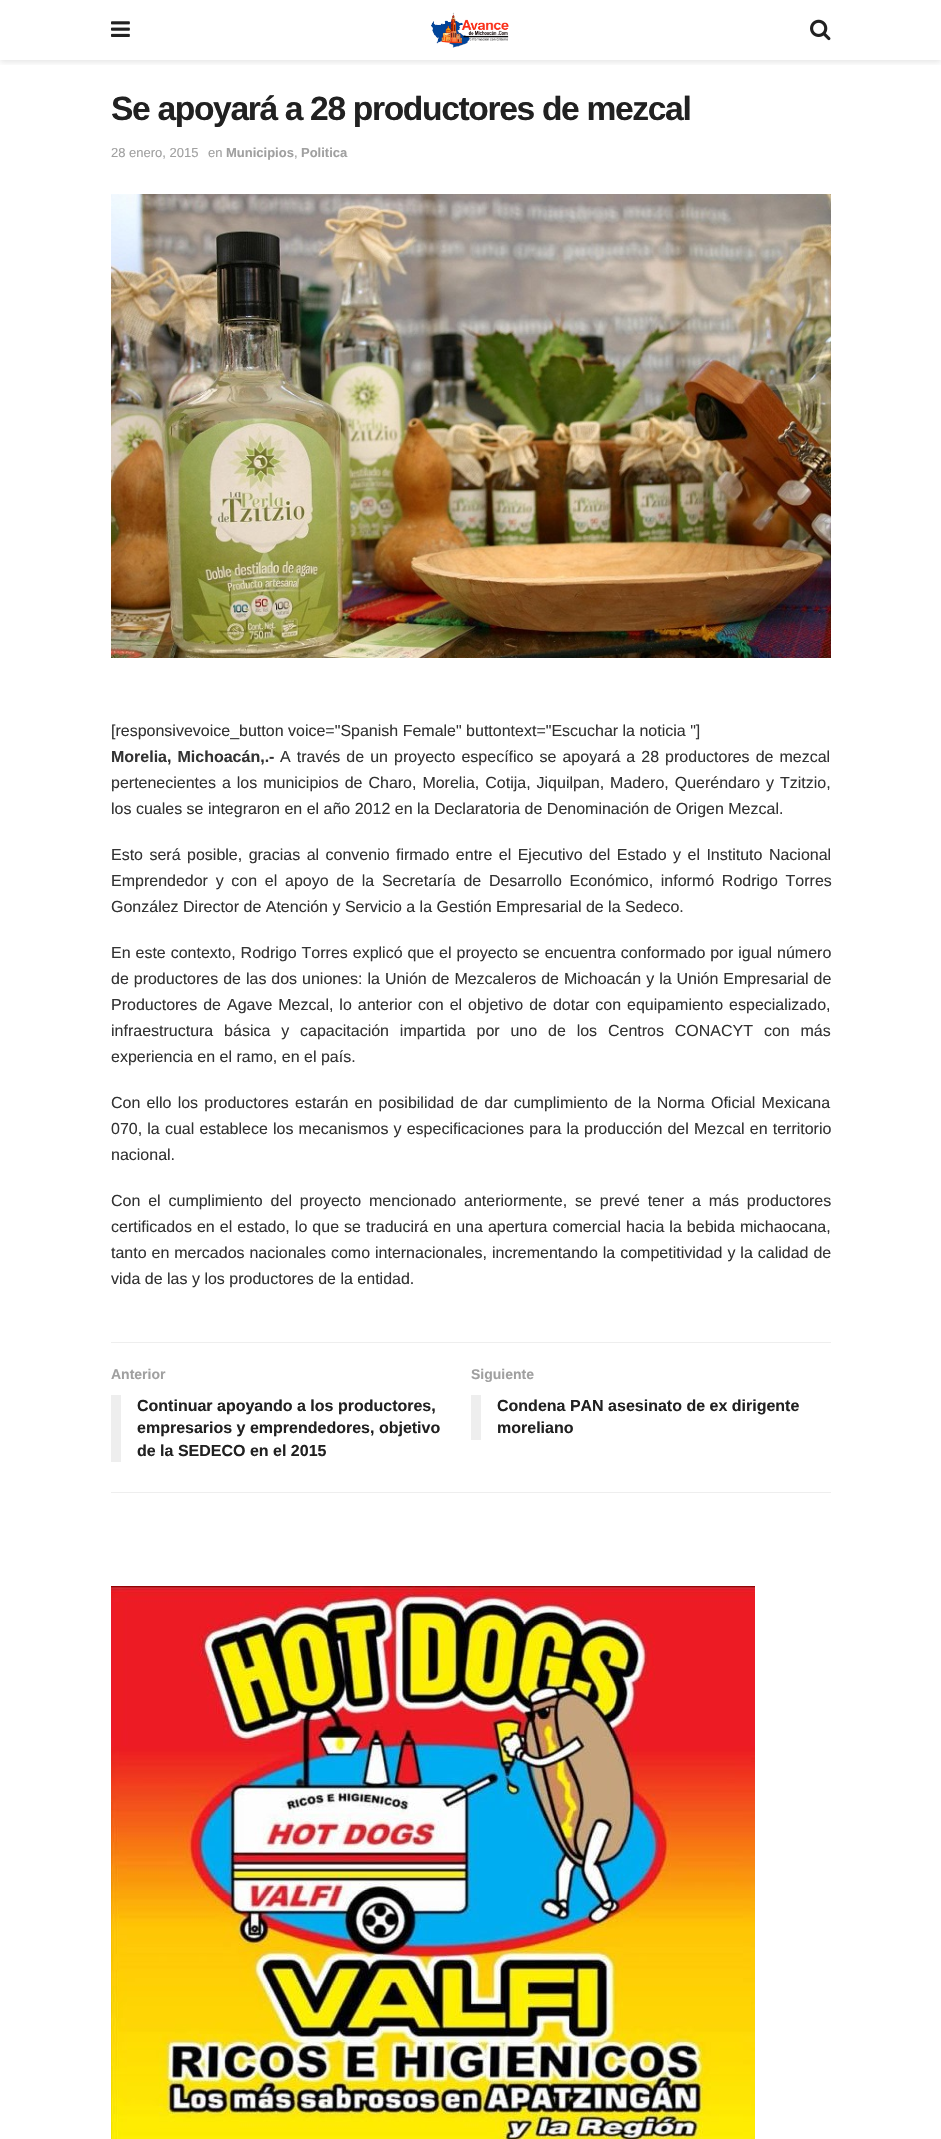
void draw(SkCanvas* canvas) {
    SkPaint paint;
    paint.setAntiAlias(true);
    auto face = [&](const char* family, int weight, float size, bool italic = false) {
        SkFontStyle style(weight, SkFontStyle::kNormal_Width,
            italic ? SkFontStyle::kItalic_Slant : SkFontStyle::kUpright_Slant);
        SkFont result(fontMgr->matchFamilyStyle(family, style), size);
        result.setSubpixel(true);
        return result;
    };
    auto write = [&](const char* s, float x, float y, const SkFont& font, SkColor color) {
        SkPaint ink(SkColor4f::FromColor(color));
        ink.setAntiAlias(true);
        canvas->drawString(s, x, y, font, ink);
    };
    auto writeSpaced = [&](const char* s, float x, float y, const SkFont& font, const SkPaint& ink, float letter, float word) {
        std::vector<SkGlyphID> glyphs(font.countText(s, strlen(s), SkTextEncoding::kUTF8));
        std::vector<float> xs(glyphs.size());
        font.textToGlyphs(s, strlen(s), SkTextEncoding::kUTF8, glyphs);
        font.getXPos(glyphs, xs, x);
        float extra = 0;
        for (size_t i = 0; i < glyphs.size(); i++) {
            xs[i] += extra;
            extra += letter + word * (glyphs[i] == font.unicharToGlyph(' '));
        }
        canvas->drawTextBlob(SkTextBlob::MakeFromPosHGlyphs(glyphs, xs, y, font), 0, 0, ink);
    };
    auto block = [&](float x, float y, float w, float h, SkColor color) {
        SkPaint ink(SkColor4f::FromColor(color));
        ink.setAntiAlias(true);
        canvas->drawRect(SkRect::MakeXYWH(x, y, w, h), ink);
    };
    auto paste = [&](const char* path, float x, float y, float w, float h) {
        auto image = SkImages::DeferredFromEncodedData(SkData::MakeFromFileName(path));
        canvas->drawImageRect(image, SkRect::MakeXYWH(x, y, w, h), SkSamplingOptions());
    };
    canvas->clear(SK_ColorWHITE);
    canvas->save();
    canvas->clipRect(SkRect::MakeXYWH(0, 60, 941, 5));
    paint.setColor(SkColorSetARGB(26, 0, 0, 0));
    paint.setMaskFilter(SkMaskFilter::MakeBlur(kNormal_SkBlurStyle, 3));
    canvas->drawRect(SkRect::MakeXYWH(0, 2, 941, 60), paint);
    paint.setMaskFilter(nullptr);
    canvas->restore();
    paste("pic1.png", 111, 21, 19, 16);
    paste("pic2.png", 431, 12, 78, 36);
    paste("pic3.png", 810, 19, 21, 22);
    auto kFont1 = face("Liberation Sans", 700, 33.6f);
    paint.setColor(SkColorSetRGB(33, 33, 33));
    writeSpaced("Se apoyará a 28 productores de mezcal", 111, 120, kFont1, paint, -1.35f, 0);
    auto kFont2 = face("Liberation Sans", 400, 13);
    write("28 enero, 2015", 111, 157, kFont2, SkColorSetRGB(160, 160, 160));
    write("en", 208, 157, kFont2, SkColorSetRGB(160, 160, 160));
    auto kFont3 = face("Liberation Sans", 700, 13);
    write("Municipios", 226, 157, kFont3, SkColorSetRGB(160, 160, 160));
    write(",", 294, 157, kFont2, SkColorSetRGB(160, 160, 160));
    write("Politica", 301, 157, kFont3, SkColorSetRGB(160, 160, 160));
    paste("pic4.png", 111, 194, 720, 464);
    auto kFont4 = face("Liberation Sans", 400, 16);
    write("[responsivevoice_button voice=\"Spanish Female\" buttontext=\"Escuchar la noticia \"]", 111, 736, kFont4, SkColorSetRGB(51, 51, 51));
    auto kFont5 = face("Liberation Sans", 700, 16);
    paint.setColor(SkColorSetRGB(51, 51, 51));
    writeSpaced("Morelia, Michoacán,.-", 111, 762, kFont5, paint, 0, 1.6f);
    writeSpaced("A través de un proyecto específico se apoyará a 28 productores de mezcal", 280, 762, kFont4, paint, 0, 1.6f);
    writeSpaced("pertenecientes a los municipios de Charo, Morelia, Cotija, Jiquilpan, Madero, Queréndaro y Tzitzio,", 111, 788, kFont4, paint, 0, 1.5f);
    write("los cuales se integraron en el año 2012 en la Declaratoria de Denominación de Origen Mezcal.", 111, 814, kFont4, SkColorSetRGB(51, 51, 51));
    writeSpaced("Esto será posible, gracias al convenio firmado entre el Ejecutivo del Estado y el Instituto Nacional", 111, 860, kFont4, paint, 0, 2);
    writeSpaced("Emprendedor y con el apoyo de la Secretaría de Desarrollo Económico, informó Rodrigo Torres", 111, 886, kFont4, paint, 0, 3.25f);
    write("González Director de Atención y Servicio a la Gestión Empresarial de la Sedeco.", 111, 912, kFont4, SkColorSetRGB(51, 51, 51));
    writeSpaced("En este contexto, Rodrigo Torres explicó que el proyecto se encuentra conformado por igual número", 111, 958, kFont4, paint, 0, 0.5f);
    writeSpaced("de productores de las dos uniones: la Unión de Mezcaleros de Michoacán y la Unión Empresarial de", 111, 984, kFont4, paint, 0, 0.5f);
    writeSpaced("Productores de Agave Mezcal, lo anterior con el objetivo de dotar con equipamiento especializado,", 111, 1010, kFont4, paint, 0, 1.5f);
    writeSpaced("infraestructura básica y capacitación impartida por uno de los Centros CONACYT con más", 111, 1036, kFont4, paint, 0, 6.4f);
    write("experiencia en el ramo, en el país.", 111, 1062, kFont4, SkColorSetRGB(51, 51, 51));
    writeSpaced("Con ello los productores estarán en posibilidad de dar cumplimiento de la Norma Oficial Mexicana", 111, 1108, kFont4, paint, 0, 1.75f);
    writeSpaced("070, la cual establece los mecanismos y especificaciones para la producción del Mezcal en territorio", 111, 1134, kFont4, paint, 0, 0.7f);
    write("nacional.", 111, 1160, kFont4, SkColorSetRGB(51, 51, 51));
    writeSpaced("Con el cumplimiento del proyecto mencionado anteriormente, se prevé tener a más productores", 111, 1206, kFont4, paint, 0, 3.4f);
    writeSpaced("certificados en el estado, lo que se traducirá en una apertura comercial hacia la bebida michaocana,", 111, 1232, kFont4, paint, 0, 0.6f);
    writeSpaced("tanto en mercados nacionales como internacionales, incrementando la competitividad y la calidad de", 111, 1258, kFont4, paint, 0, 0.5f);
    write("vida de las y los productores de la entidad.", 111, 1284, kFont4, SkColorSetRGB(51, 51, 51));
    block(111, 1342, 720, 1, SkColorSetRGB(238, 238, 238));
    block(111, 1492, 720, 1, SkColorSetRGB(238, 238, 238));
    auto kFont6 = face("Liberation Sans", 700, 14);
    write("Anterior", 111, 1379, kFont6, SkColorSetRGB(160, 160, 160));
    block(111, 1395, 10, 67, SkColorSetRGB(238, 238, 238));
    write("Continuar apoyando a los productores,", 137, 1411, kFont5, SkColorSetRGB(33, 33, 33));
    write("empresarios y emprendedores, objetivo", 137, 1433, kFont5, SkColorSetRGB(33, 33, 33));
    write("de la SEDECO en el 2015", 137, 1456, kFont5, SkColorSetRGB(33, 33, 33));
    write("Siguiente", 471, 1379, kFont6, SkColorSetRGB(160, 160, 160));
    block(471, 1395, 10, 45, SkColorSetRGB(238, 238, 238));
    write("Condena PAN asesinato de ex dirigente", 497, 1411, kFont5, SkColorSetRGB(33, 33, 33));
    write("moreliano", 497, 1433, kFont5, SkColorSetRGB(33, 33, 33));
    paste("pic5.png", 111, 1586, 644, 553);
}
